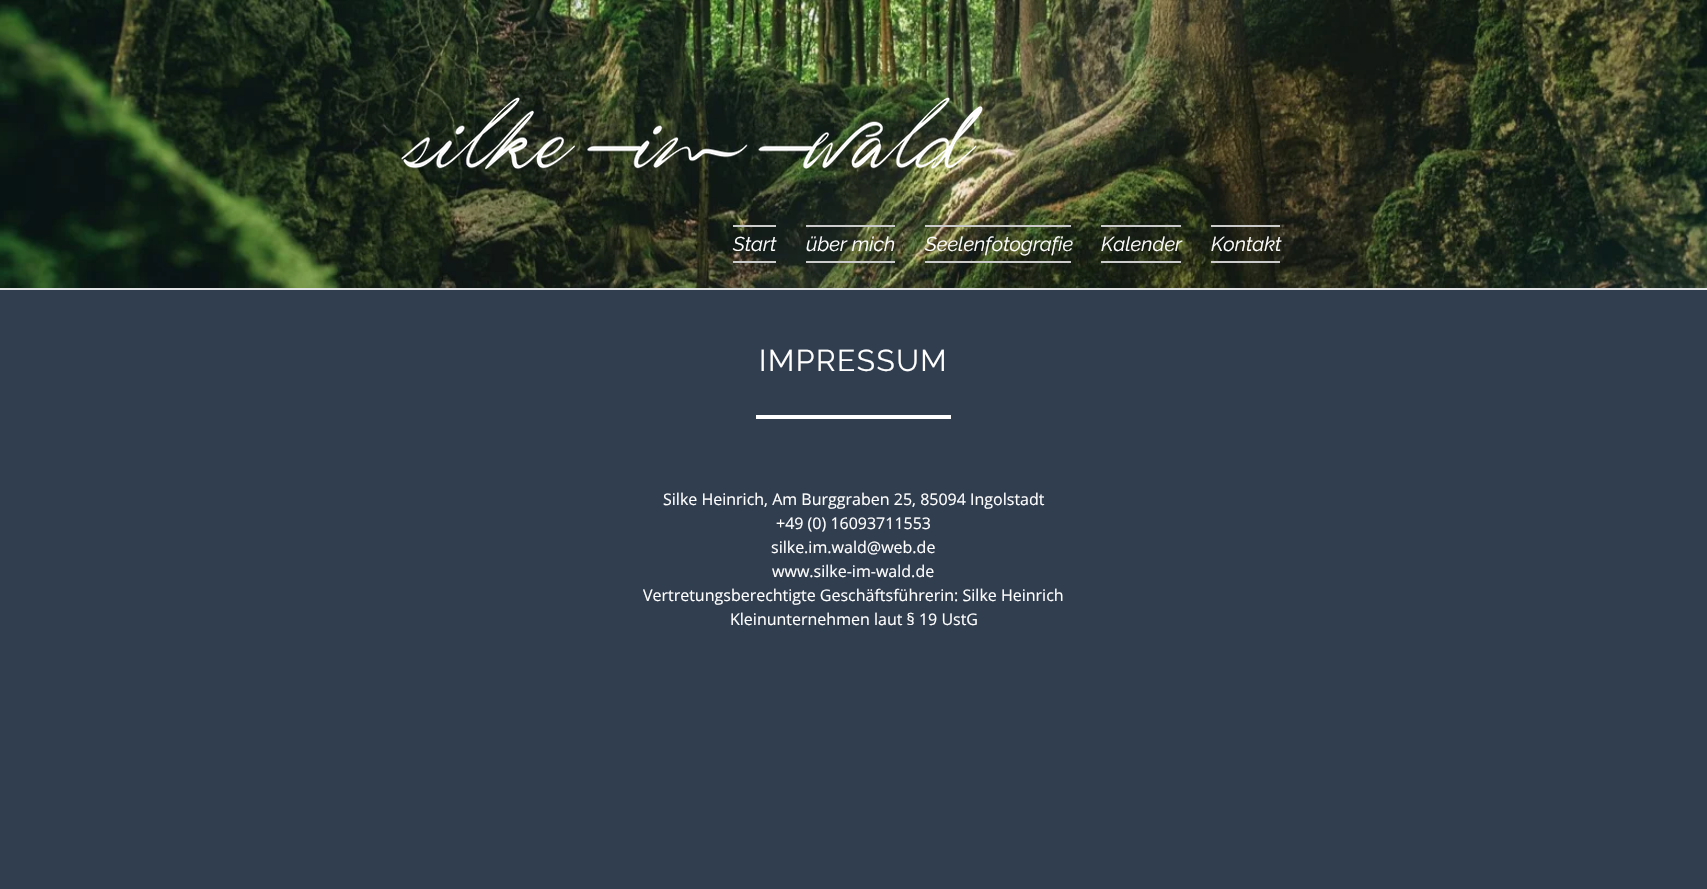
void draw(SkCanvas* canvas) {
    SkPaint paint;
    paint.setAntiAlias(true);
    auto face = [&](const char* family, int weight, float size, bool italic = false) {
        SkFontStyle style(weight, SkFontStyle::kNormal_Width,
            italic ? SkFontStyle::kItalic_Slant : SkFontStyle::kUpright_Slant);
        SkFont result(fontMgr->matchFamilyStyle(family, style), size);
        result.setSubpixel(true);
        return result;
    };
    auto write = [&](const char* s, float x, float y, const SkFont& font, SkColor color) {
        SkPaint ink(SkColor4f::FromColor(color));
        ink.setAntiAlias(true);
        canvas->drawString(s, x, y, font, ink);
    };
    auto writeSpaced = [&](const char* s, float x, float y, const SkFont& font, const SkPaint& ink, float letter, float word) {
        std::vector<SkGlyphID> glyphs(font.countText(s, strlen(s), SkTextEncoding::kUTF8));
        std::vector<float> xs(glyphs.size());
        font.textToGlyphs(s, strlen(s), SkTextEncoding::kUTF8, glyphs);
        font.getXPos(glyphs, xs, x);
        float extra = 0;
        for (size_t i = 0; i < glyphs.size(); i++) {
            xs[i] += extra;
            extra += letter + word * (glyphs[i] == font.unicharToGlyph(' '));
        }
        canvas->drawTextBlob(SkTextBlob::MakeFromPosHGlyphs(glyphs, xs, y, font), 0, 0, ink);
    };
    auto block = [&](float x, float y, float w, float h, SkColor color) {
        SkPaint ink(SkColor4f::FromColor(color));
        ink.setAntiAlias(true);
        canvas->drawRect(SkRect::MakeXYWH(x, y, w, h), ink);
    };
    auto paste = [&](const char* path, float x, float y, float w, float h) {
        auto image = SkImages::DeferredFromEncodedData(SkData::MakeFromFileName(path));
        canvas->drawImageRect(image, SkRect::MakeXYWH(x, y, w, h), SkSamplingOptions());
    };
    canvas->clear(SkColorSetRGB(49, 62, 79));
    paste("pic1.png", 0, 0, 1707, 288);
    paste("pic2.png", 401, 97, 582, 73);
    block(733, 225, 43, 2, SkColorSetRGB(204, 204, 204));
    block(733, 261, 43, 2, SkColorSetRGB(204, 204, 204));
    auto kFont1 = face("Raleway", 400, 20, true);
    write("Start", 733, 251, kFont1, SK_ColorWHITE);
    block(806, 225, 89, 2, SkColorSetRGB(204, 204, 204));
    block(806, 261, 89, 2, SkColorSetRGB(204, 204, 204));
    write("über mich", 806, 251, kFont1, SK_ColorWHITE);
    block(925, 225, 146, 2, SkColorSetRGB(204, 204, 204));
    block(925, 261, 146, 2, SkColorSetRGB(204, 204, 204));
    write("Seelenfotografie", 925, 251, kFont1, SK_ColorWHITE);
    block(1101, 225, 80, 2, SkColorSetRGB(204, 204, 204));
    block(1101, 261, 80, 2, SkColorSetRGB(204, 204, 204));
    write("Kalender", 1101, 251, kFont1, SK_ColorWHITE);
    block(1211, 225, 69, 2, SkColorSetRGB(204, 204, 204));
    block(1211, 261, 69, 2, SkColorSetRGB(204, 204, 204));
    write("Kontakt", 1211, 251, kFont1, SK_ColorWHITE);
    block(0, 288, 1707, 2, SkColorSetRGB(226, 228, 230));
    auto kFont2 = face("Raleway", 400, 30);
    paint.setColor(SK_ColorWHITE);
    writeSpaced("IMPRESSUM", 759, 371, kFont2, paint, 1.5f, 0);
    block(756, 415, 195, 4, SK_ColorWHITE);
    auto kFont3 = face("Open Sans", 400, 16);
    write("Silke Heinrich, Am Burggraben 25, 85094 Ingolstadt", 663, 505, kFont3, SK_ColorWHITE);
    write("+49 (0) 16093711553", 776, 529, kFont3, SK_ColorWHITE);
    write("silke.im.wald@web.de", 771, 553, kFont3, SK_ColorWHITE);
    write("www.silke-im-wald.de", 772, 577, kFont3, SK_ColorWHITE);
    write("Vertretungsberechtigte Geschäftsführerin: Silke Heinrich", 643, 601, kFont3, SK_ColorWHITE);
    write("Kleinunternehmen laut § 19 UstG", 730, 625, kFont3, SK_ColorWHITE);
}
